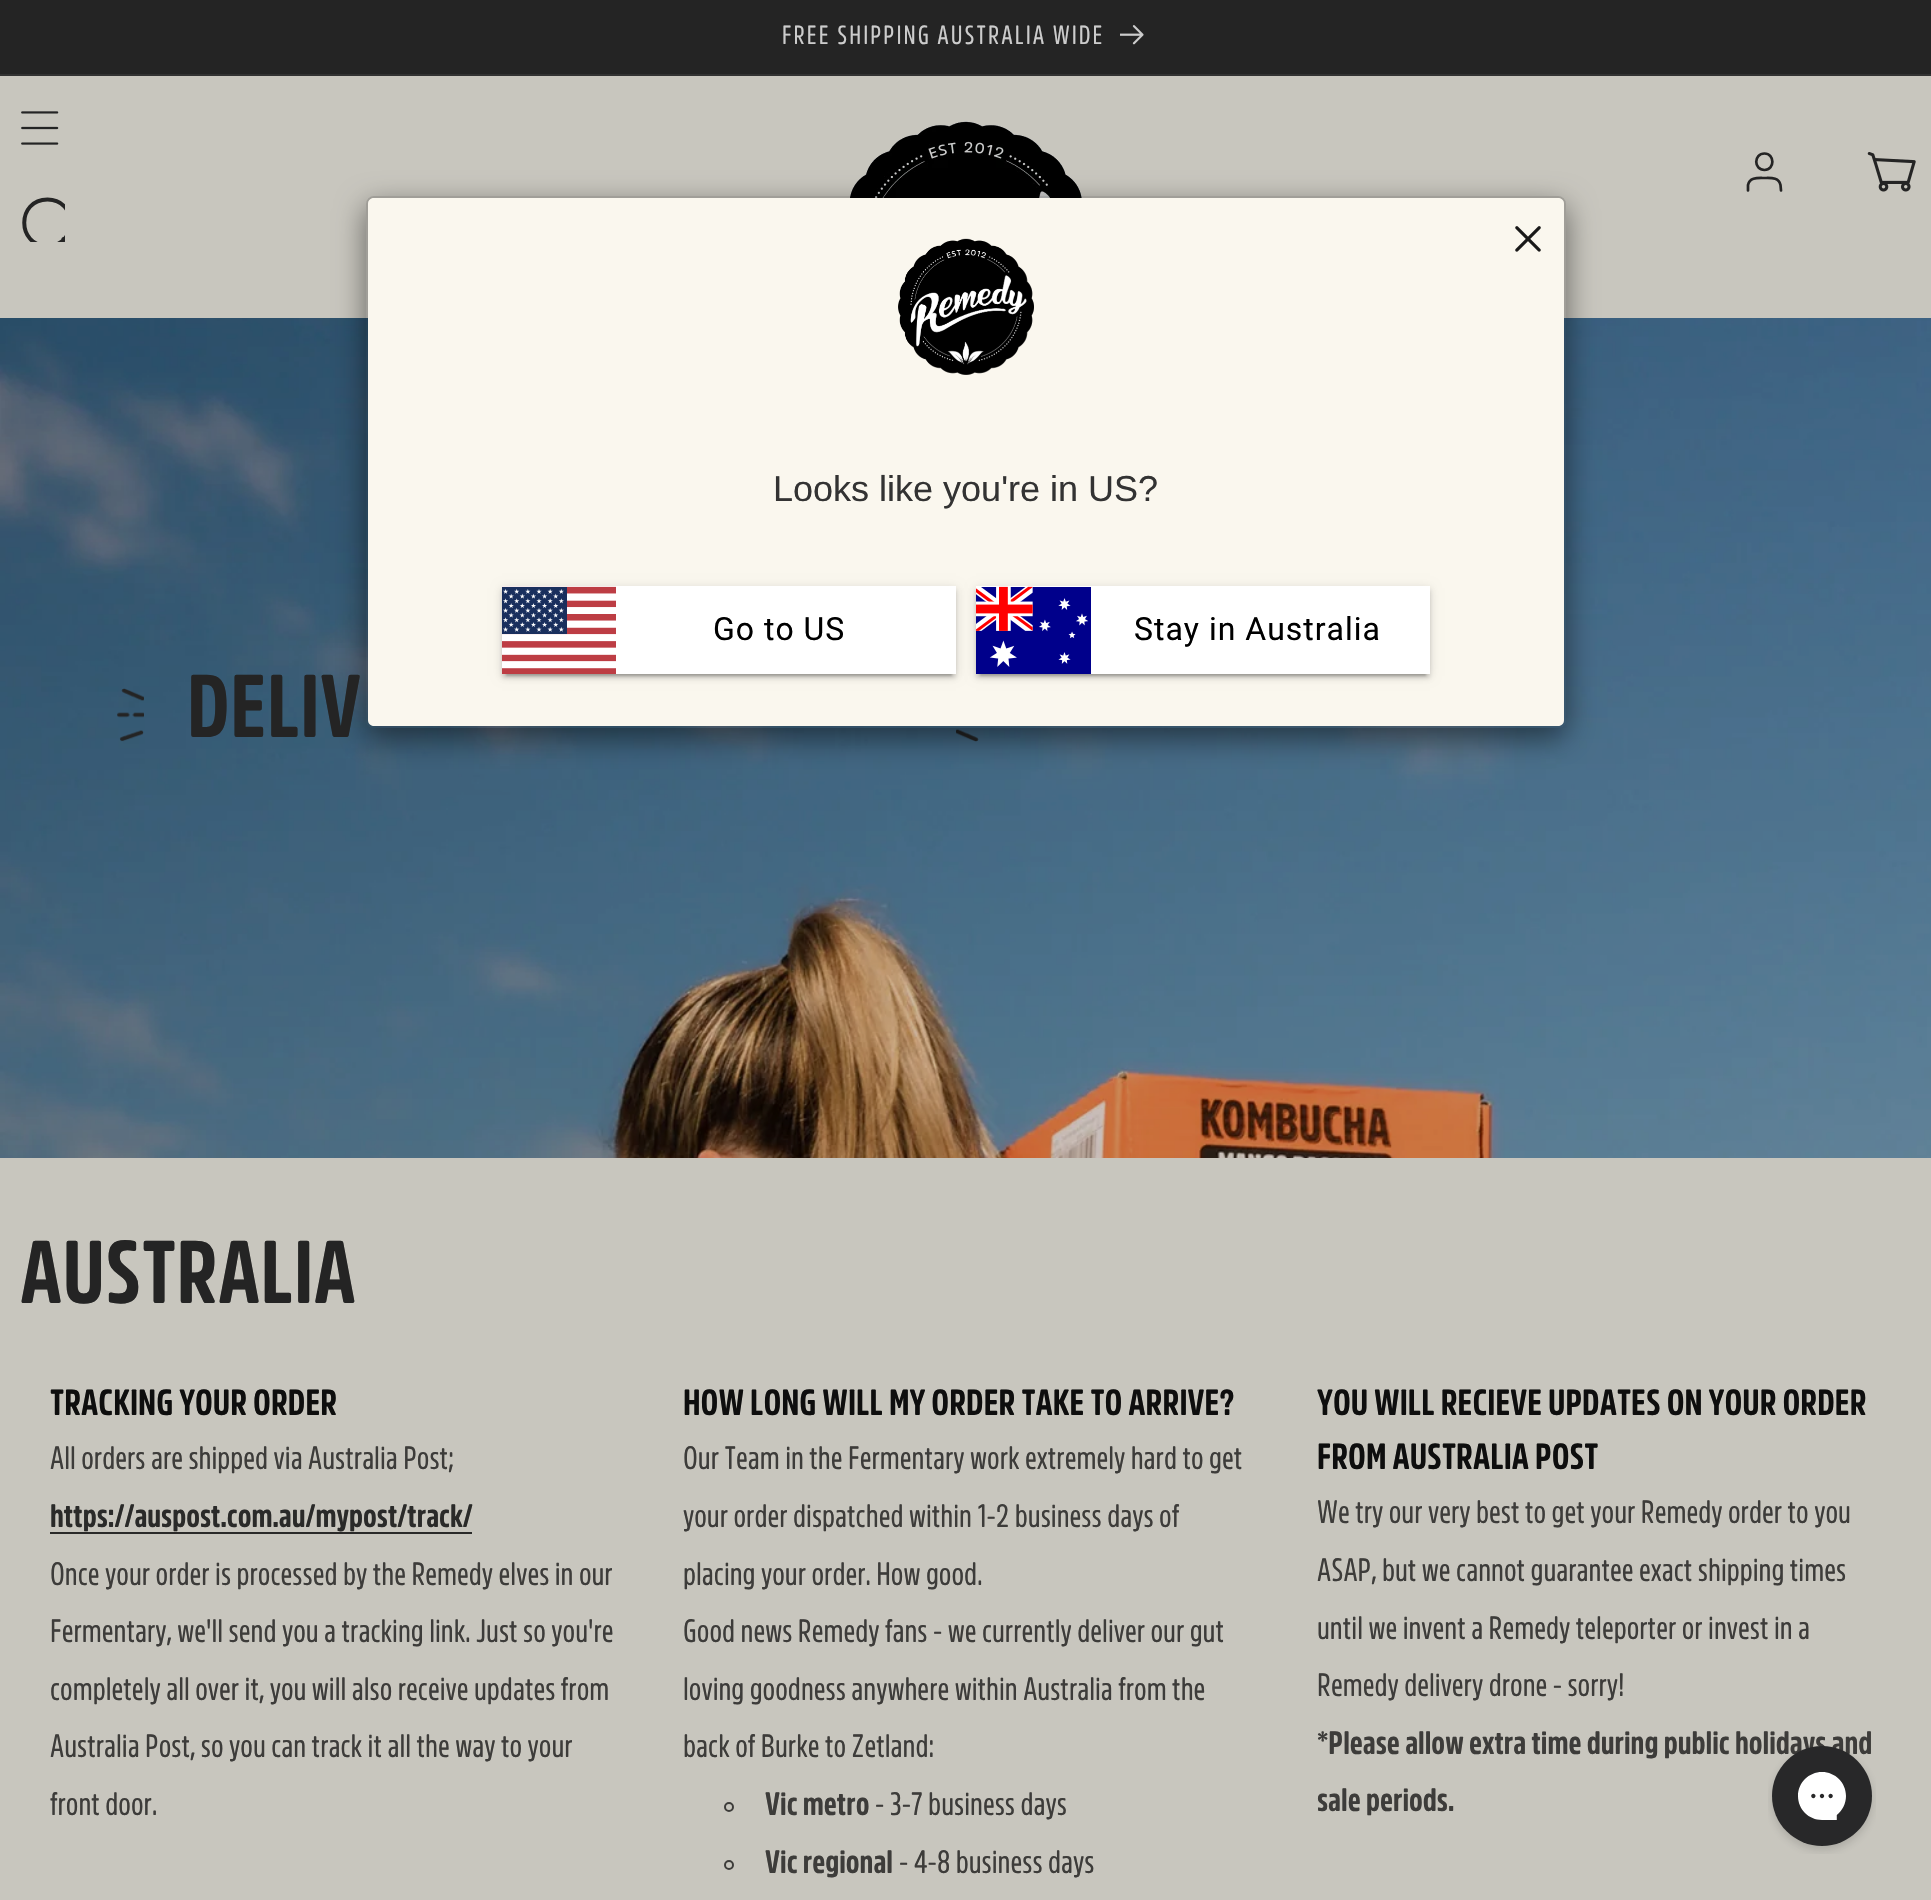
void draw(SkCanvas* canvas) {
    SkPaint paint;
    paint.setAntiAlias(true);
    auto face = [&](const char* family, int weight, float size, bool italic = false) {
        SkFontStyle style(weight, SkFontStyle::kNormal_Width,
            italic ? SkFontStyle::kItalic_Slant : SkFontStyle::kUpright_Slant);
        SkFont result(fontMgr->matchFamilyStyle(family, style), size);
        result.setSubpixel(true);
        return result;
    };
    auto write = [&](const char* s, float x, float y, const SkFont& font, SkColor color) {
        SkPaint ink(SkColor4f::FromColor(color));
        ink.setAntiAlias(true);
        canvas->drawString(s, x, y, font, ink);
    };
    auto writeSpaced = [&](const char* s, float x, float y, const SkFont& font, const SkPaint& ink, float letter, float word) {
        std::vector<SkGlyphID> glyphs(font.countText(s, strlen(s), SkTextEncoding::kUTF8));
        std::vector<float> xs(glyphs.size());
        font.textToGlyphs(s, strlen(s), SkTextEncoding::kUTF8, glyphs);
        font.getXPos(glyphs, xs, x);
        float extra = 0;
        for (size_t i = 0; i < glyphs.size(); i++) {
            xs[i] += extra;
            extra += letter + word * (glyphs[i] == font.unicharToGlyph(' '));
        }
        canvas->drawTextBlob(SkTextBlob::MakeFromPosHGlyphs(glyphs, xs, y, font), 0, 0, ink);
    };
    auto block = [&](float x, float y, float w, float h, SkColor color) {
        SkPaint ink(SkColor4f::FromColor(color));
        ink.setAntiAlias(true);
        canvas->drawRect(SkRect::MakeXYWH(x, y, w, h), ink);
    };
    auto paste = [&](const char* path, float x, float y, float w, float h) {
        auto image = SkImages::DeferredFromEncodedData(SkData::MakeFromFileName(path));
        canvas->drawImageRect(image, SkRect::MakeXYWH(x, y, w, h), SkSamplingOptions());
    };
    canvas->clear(SkColorSetRGB(200, 198, 190));
    block(0, 0, 1931, 74, SkColorSetRGB(36, 36, 36));
    block(0, 74, 1931, 2, SkColorSetRGB(50, 50, 50));
    auto kFont1 = face("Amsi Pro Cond", 400, 26);
    paint.setColor(SkColorSetRGB(204, 204, 204));
    writeSpaced("FREE SHIPPING AUSTRALIA WIDE", 782, 44, kFont1, paint, 2, 0);
    paste("pic1.png", 1120, 25, 24, 20);
    paste("pic2.png", 21, 111, 38, 34);
    canvas->save();
    canvas->clipRect(SkRect::MakeXYWH(15, 190, 50, 52));
    paint.setStyle(SkPaint::kStroke_Style);
    paint.setStrokeWidth(4);
    paint.setStrokeCap(SkPaint::kRound_Cap);
    paint.setStrokeJoin(SkPaint::kRound_Join);
    paint.setColor(SkColorSetRGB(36, 36, 36));
    canvas->drawPath(SkPathBuilder().moveTo(47.5f, 246).cubicTo(78, 246, 78, 199.5f, 47.5f, 199.5f).cubicTo(16.5f, 199.5f, 16.5f, 246, 47.5f, 246).close().moveTo(76, 251.5f).lineTo(63.5f, 239).detach(), paint);
    canvas->restore();
    paste("pic3.png", 850, 121, 232, 77);
    paint.setStrokeWidth(2.7f);
    canvas->drawPath(SkPathBuilder().moveTo(1781, 190.5f).lineTo(1780.5f, 185).cubicTo(1779, 177, 1770.5f, 178, 1764.5f, 178).cubicTo(1758, 178, 1749.5f, 177, 1748, 185).lineTo(1748, 190.5f).moveTo(1764.5f, 170).cubicTo(1775, 170, 1775, 153.5f, 1764.5f, 153.5f).cubicTo(1753.5f, 153.5f, 1753.5f, 170, 1764.5f, 170).close().detach(), paint);
    paste("pic4.png", 1867, 152, 49, 40);
    paste("pic9.png", 0, 318, 1931, 840);
    paste("pic11.png", 956, 729, 23, 13);
    canvas->save();
    canvas->clipPath(SkPathBuilder(SkPathFillType::kEvenOdd).moveTo(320, 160).lineTo(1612, 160).lineTo(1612, 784).lineTo(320, 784).close().moveTo(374, 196).lineTo(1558, 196).cubicTo(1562.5f, 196, 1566, 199.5f, 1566, 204).lineTo(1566, 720).cubicTo(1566, 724.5f, 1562.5f, 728, 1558, 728).lineTo(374, 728).cubicTo(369.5f, 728, 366, 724.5f, 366, 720).lineTo(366, 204).cubicTo(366, 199.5f, 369.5f, 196, 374, 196).close().detach(), true);
    paint.setStyle(SkPaint::kFill_Style);
    paint.setColor(SkColorSetARGB(128, 0, 0, 0));
    paint.setMaskFilter(SkMaskFilter::MakeBlur(kNormal_SkBlurStyle, 15));
    canvas->drawRoundRect(SkRect::MakeXYWH(366, 206, 1200, 532), 8, 8, paint);
    paint.setMaskFilter(nullptr);
    canvas->restore();
    paint.setStyle(SkPaint::kStroke_Style);
    paint.setStrokeWidth(2);
    paint.setStrokeCap(SkPaint::kButt_Cap);
    paint.setStrokeJoin(SkPaint::kMiter_Join);
    paint.setColor(SkColorSetARGB(51, 0, 0, 0));
    canvas->drawRoundRect(SkRect::MakeXYWH(367, 197, 1198, 530), 7, 7, paint);
    paint.setStyle(SkPaint::kFill_Style);
    paint.setColor(SkColorSetRGB(250, 247, 238));
    canvas->drawPath(SkPathBuilder().moveTo(374, 198).lineTo(1558, 198).cubicTo(1561.5f, 198, 1564, 200.5f, 1564, 204).lineTo(1564, 436).lineTo(368, 436).lineTo(368, 204).cubicTo(368, 200.5f, 370.5f, 198, 374, 198).close().detach(), paint);
    paste("pic5.png", 898, 238, 136, 137);
    paste("pic6.png", 1515, 226, 26, 26);
    block(368, 436, 1196, 106, SkColorSetRGB(250, 247, 238));
    auto kFont2 = face("Liberation Sans", 400, 36);
    write("Looks like you're in US?", 773, 501, kFont2, SkColorSetRGB(51, 51, 51));
    canvas->drawPath(SkPathBuilder().moveTo(368, 542).lineTo(1564, 542).lineTo(1564, 720).cubicTo(1564, 723.5f, 1561.5f, 726, 1558, 726).lineTo(374, 726).cubicTo(370.5f, 726, 368, 723.5f, 368, 720).close().detach(), paint);
    paint.setColor(SkColorSetARGB(31, 0, 0, 0));
    paint.setMaskFilter(SkMaskFilter::MakeBlur(kNormal_SkBlurStyle, 5));
    canvas->drawRect(SkRect::MakeXYWH(502, 588, 454, 88), paint);
    paint.setMaskFilter(nullptr);
    paint.setColor(SkColorSetARGB(51, 0, 0, 0));
    paint.setMaskFilter(SkMaskFilter::MakeBlur(kNormal_SkBlurStyle, 1));
    canvas->drawRect(SkRect::MakeXYWH(506, 596, 446, 80), paint);
    paint.setMaskFilter(nullptr);
    paint.setColor(SkColorSetARGB(36, 0, 0, 0));
    paint.setMaskFilter(SkMaskFilter::MakeBlur(kNormal_SkBlurStyle, 2));
    canvas->drawRect(SkRect::MakeXYWH(502, 590, 454, 88), paint);
    paint.setMaskFilter(nullptr);
    block(502, 586, 454, 88, SK_ColorWHITE);
    paste("pic7.png", 502, 586, 114, 88);
    auto kFont3 = face("Roboto", 400, 32);
    paint.setColor(SK_ColorBLACK);
    writeSpaced("Go to US", 713, 640, kFont3, paint, 1, 0);
    paint.setColor(SkColorSetARGB(31, 0, 0, 0));
    paint.setMaskFilter(SkMaskFilter::MakeBlur(kNormal_SkBlurStyle, 5));
    canvas->drawRect(SkRect::MakeXYWH(976, 588, 454, 88), paint);
    paint.setMaskFilter(nullptr);
    paint.setColor(SkColorSetARGB(51, 0, 0, 0));
    paint.setMaskFilter(SkMaskFilter::MakeBlur(kNormal_SkBlurStyle, 1));
    canvas->drawRect(SkRect::MakeXYWH(980, 596, 446, 80), paint);
    paint.setMaskFilter(nullptr);
    paint.setColor(SkColorSetARGB(36, 0, 0, 0));
    paint.setMaskFilter(SkMaskFilter::MakeBlur(kNormal_SkBlurStyle, 2));
    canvas->drawRect(SkRect::MakeXYWH(976, 590, 454, 88), paint);
    paint.setMaskFilter(nullptr);
    block(976, 586, 454, 88, SK_ColorWHITE);
    paste("pic8.png", 976, 586, 115, 88);
    paint.setColor(SK_ColorBLACK);
    writeSpaced("Stay in Australia", 1134, 640, kFont3, paint, 1, 0);
    paste("pic10.png", 117, 688, 27, 54);
    auto kFont4 = face("Amsi Pro Cond", 700, 88);
    paint.setColor(SkColorSetRGB(36, 36, 36));
    writeSpaced("DELIV", 187, 737, kFont4, paint, 0.25f, 0);
    writeSpaced("AUSTRALIA", 20, 1303, kFont4, paint, 0.25f, 0);
    auto kFont5 = face("Amsi Pro Cond", 700, 36);
    write("TRACKING YOUR ORDER", 50, 1415, kFont5, SkColorSetRGB(14, 14, 14));
    auto kFont6 = face("Amsi Pro Cond", 400, 32);
    write("All orders are shipped via Australia Post;", 50, 1469, kFont6, SkColorSetRGB(61, 60, 58));
    auto kFont7 = face("Amsi Pro Cond", 700, 32);
    write("https://auspost.com.au/mypost/track/", 50, 1527, kFont7, SkColorSetRGB(42, 42, 41));
    block(50, 1532, 422, 2, SkColorSetRGB(42, 42, 41));
    write("Once your order is processed by the Remedy elves in our", 50, 1585, kFont6, SkColorSetRGB(61, 60, 58));
    write("Fermentary, we'll send you a tracking link. Just so you're", 50, 1642, kFont6, SkColorSetRGB(61, 60, 58));
    write("completely all over it, you will also receive updates from", 50, 1700, kFont6, SkColorSetRGB(61, 60, 58));
    write("Australia Post, so you can track it all the way to your", 50, 1757, kFont6, SkColorSetRGB(61, 60, 58));
    write("front door.", 50, 1815, kFont6, SkColorSetRGB(61, 60, 58));
    write("HOW LONG WILL MY ORDER TAKE TO ARRIVE?", 683, 1415, kFont5, SkColorSetRGB(14, 14, 14));
    write("Our Team in the Fermentary work extremely hard to get", 683, 1469, kFont6, SkColorSetRGB(61, 60, 58));
    write("your order dispatched within 1-2 business days of", 683, 1527, kFont6, SkColorSetRGB(61, 60, 58));
    write("placing your order. How good.", 683, 1585, kFont6, SkColorSetRGB(61, 60, 58));
    write("Good news Remedy fans - we currently deliver our gut", 683, 1642, kFont6, SkColorSetRGB(61, 60, 58));
    write("loving goodness anywhere within Australia from the", 683, 1700, kFont6, SkColorSetRGB(61, 60, 58));
    write("back of Burke to Zetland:", 683, 1757, kFont6, SkColorSetRGB(61, 60, 58));
    paint.setStyle(SkPaint::kStroke_Style);
    paint.setColor(SkColorSetRGB(61, 60, 58));
    canvas->drawCircle(729, 1807, 4, paint);
    write("Vic metro", 765, 1815, kFont7, SkColorSetRGB(61, 60, 58));
    write("- 3-7 business days", 875, 1815, kFont6, SkColorSetRGB(61, 60, 58));
    canvas->drawCircle(729, 1865, 4, paint);
    write("Vic regional", 765, 1873, kFont7, SkColorSetRGB(61, 60, 58));
    write("- 4-8 business days", 899, 1873, kFont6, SkColorSetRGB(61, 60, 58));
    write("YOU WILL RECIEVE UPDATES ON YOUR ORDER", 1317, 1415, kFont5, SkColorSetRGB(14, 14, 14));
    write("FROM AUSTRALIA POST", 1317, 1469, kFont5, SkColorSetRGB(14, 14, 14));
    write("We try our very best to get your Remedy order to you", 1317, 1523, kFont6, SkColorSetRGB(61, 60, 58));
    write("ASAP, but we cannot guarantee exact shipping times", 1317, 1581, kFont6, SkColorSetRGB(61, 60, 58));
    write("until we invent a Remedy teleporter or invest in a", 1317, 1639, kFont6, SkColorSetRGB(61, 60, 58));
    write("Remedy delivery drone - sorry!", 1317, 1696, kFont6, SkColorSetRGB(61, 60, 58));
    write("*Please allow extra time during public holidays and", 1317, 1754, kFont7, SkColorSetRGB(61, 60, 58));
    write("sale periods.", 1317, 1811, kFont7, SkColorSetRGB(61, 60, 58));
    paste("pic12.png", 1768, 1746, 108, 108);
}
